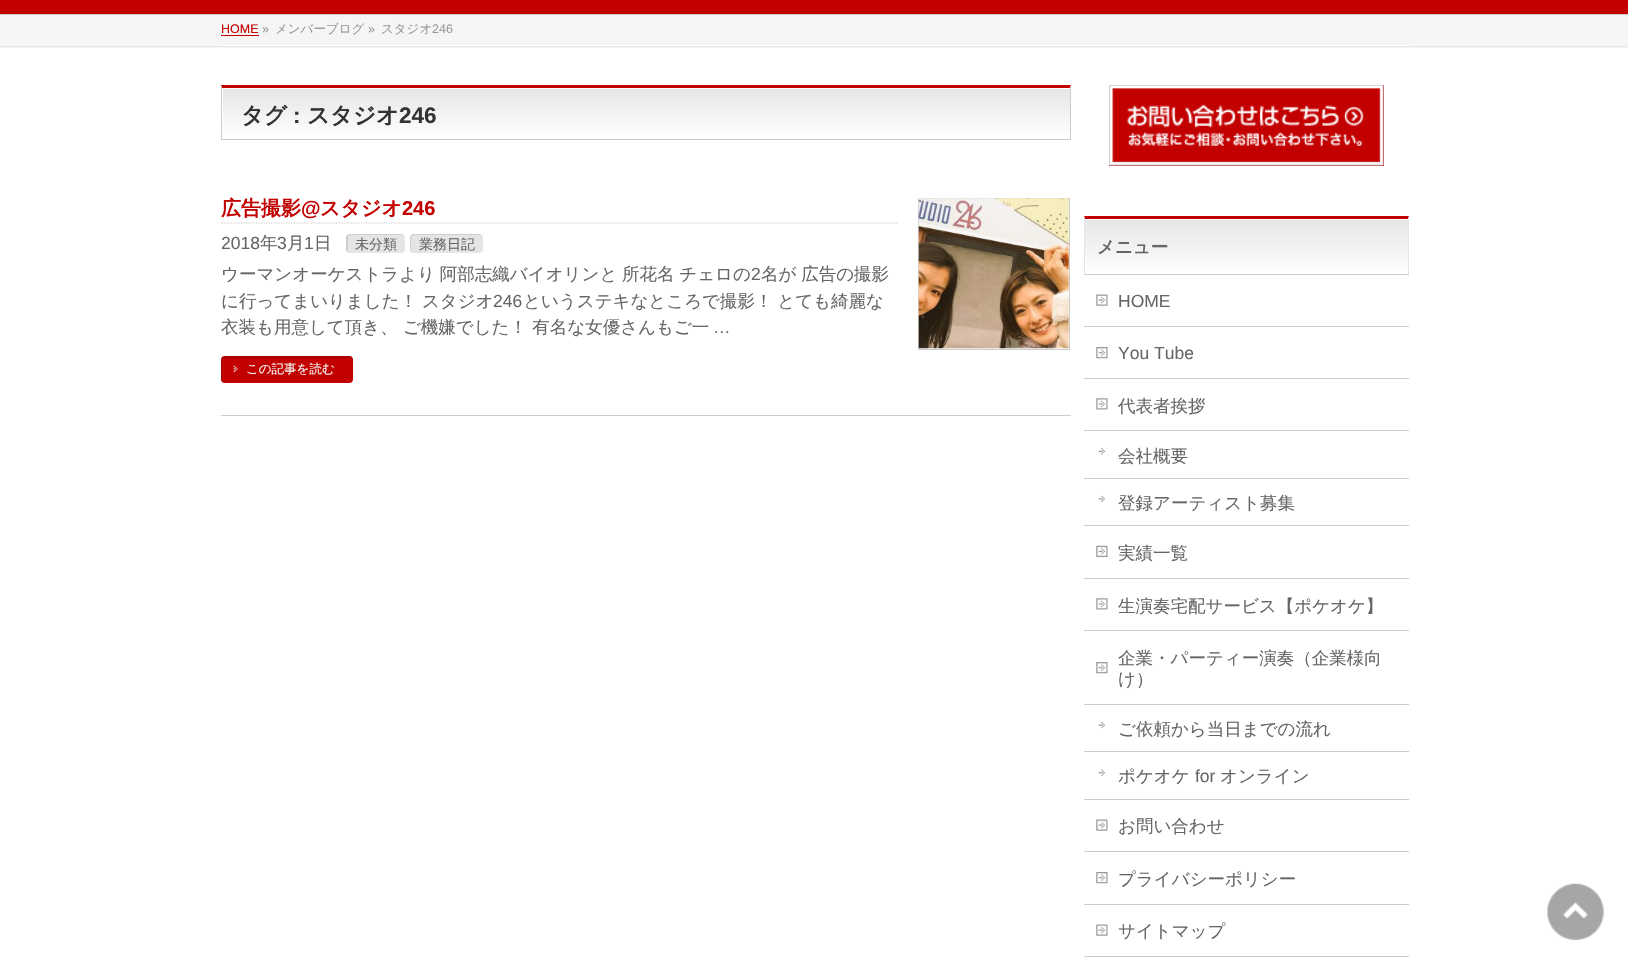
void draw(SkCanvas* canvas) {
    SkPaint paint;
    paint.setAntiAlias(true);
    auto face = [&](const char* family, int weight, float size, bool italic = false) {
        SkFontStyle style(weight, SkFontStyle::kNormal_Width,
            italic ? SkFontStyle::kItalic_Slant : SkFontStyle::kUpright_Slant);
        SkFont result(fontMgr->matchFamilyStyle(family, style), size);
        result.setSubpixel(true);
        return result;
    };
    auto write = [&](const char* s, float x, float y, const SkFont& font, SkColor color) {
        SkPaint ink(SkColor4f::FromColor(color));
        ink.setAntiAlias(true);
        canvas->drawString(s, x, y, font, ink);
    };
    auto writeSpaced = [&](const char* s, float x, float y, const SkFont& font, const SkPaint& ink, float letter, float word) {
        std::vector<SkGlyphID> glyphs(font.countText(s, strlen(s), SkTextEncoding::kUTF8));
        std::vector<float> xs(glyphs.size());
        font.textToGlyphs(s, strlen(s), SkTextEncoding::kUTF8, glyphs);
        font.getXPos(glyphs, xs, x);
        float extra = 0;
        for (size_t i = 0; i < glyphs.size(); i++) {
            xs[i] += extra;
            extra += letter + word * (glyphs[i] == font.unicharToGlyph(' '));
        }
        canvas->drawTextBlob(SkTextBlob::MakeFromPosHGlyphs(glyphs, xs, y, font), 0, 0, ink);
    };
    auto block = [&](float x, float y, float w, float h, SkColor color) {
        SkPaint ink(SkColor4f::FromColor(color));
        ink.setAntiAlias(true);
        canvas->drawRect(SkRect::MakeXYWH(x, y, w, h), ink);
    };
    auto card = [&](float x, float y, float w, float h, float radius, SkColor color) {
        SkPaint ink(SkColor4f::FromColor(color));
        ink.setAntiAlias(true);
        canvas->drawRoundRect(SkRect::MakeXYWH(x, y, w, h), radius, radius, ink);
    };
    auto paste = [&](const char* path, float x, float y, float w, float h) {
        auto image = SkImages::DeferredFromEncodedData(SkData::MakeFromFileName(path));
        canvas->drawImageRect(image, SkRect::MakeXYWH(x, y, w, h), SkSamplingOptions());
    };
    canvas->clear(SK_ColorWHITE);
    block(0, 0, 1628, 14, SkColorSetRGB(195, 0, 0));
    block(0, 14, 1628, 1, SkColorSetRGB(204, 204, 204));
    block(0, 15, 1628, 33, SkColorSetRGB(245, 245, 245));
    block(0, 46, 1628, 1, SkColorSetRGB(229, 229, 229));
    block(221, 45, 1188, 1, SK_ColorWHITE);
    auto kFont1 = face("Liberation Sans", 400, 12.5f);
    write("HOME", 221, 33, kFont1, SkColorSetRGB(195, 0, 0));
    block(221, 35, 38, 1, SkColorSetRGB(195, 0, 0));
    write("»", 262, 33, kFont1, SkColorSetRGB(153, 153, 153));
    auto kFont2 = face("WenQuanYi Zen Hei", 500, 12.5f);
    write("メンバーブログ", 275, 33, kFont2, SkColorSetRGB(153, 153, 153));
    write("»", 368, 33, kFont1, SkColorSetRGB(153, 153, 153));
    write("スタジオ", 381, 33, kFont2, SkColorSetRGB(153, 153, 153));
    write("246", 432, 33, kFont1, SkColorSetRGB(153, 153, 153));
    {
        const SkColor colors[] = {SkColorSetRGB(229, 229, 229), SK_ColorWHITE};
        const float stops[] = {0, 1};
        const SkPoint ends[] = {{223, 88}, {223, 139}};
        paint.setShader(SkGradientShader::MakeLinear(ends, colors, stops, 2, SkTileMode::kClamp));
        paint.setAlpha(255);
    }
    canvas->drawRect(SkRect::MakeXYWH(223, 89, 847, 45), paint);
    paint.setShader(nullptr);
    paint.setColor(SkColorSetRGB(195, 0, 0));
    canvas->drawPath(SkPathBuilder().moveTo(221, 85).lineTo(1071, 85).lineTo(1070, 88).lineTo(222, 88).close().detach(), paint);
    paint.setColor(SkColorSetRGB(204, 204, 204));
    canvas->drawPath(SkPathBuilder().moveTo(1071, 85).lineTo(1071, 140).lineTo(1070, 139).lineTo(1070, 88).close().detach(), paint);
    block(221, 139, 850, 1, SkColorSetRGB(204, 204, 204));
    canvas->drawPath(SkPathBuilder().moveTo(221, 140).lineTo(221, 85).lineTo(222, 88).lineTo(222, 139).close().detach(), paint);
    auto kFont3 = face("WenQuanYi Zen Hei", 700, 22.5f);
    write("タグ", 241, 123, kFont3, SkColorSetRGB(51, 51, 51));
    auto kFont4 = face("Liberation Sans", 700, 22.5f);
    write(":", 293, 123, kFont4, SkColorSetRGB(51, 51, 51));
    write("スタジオ", 307, 123, kFont3, SkColorSetRGB(51, 51, 51));
    write("246", 399, 123, kFont4, SkColorSetRGB(51, 51, 51));
    block(221, 415, 850, 1, SkColorSetRGB(204, 204, 204));
    paint.setStyle(SkPaint::kStroke_Style);
    paint.setStrokeWidth(1.2f);
    paint.setPathEffect(SkDashPathEffect::Make({{1.25f, 1.25f}}, 0));
    canvas->drawPath(SkPathBuilder().moveTo(221, 223).lineTo(897.5f, 223).detach(), paint);
    paint.setPathEffect(nullptr);
    auto kFont5 = face("WenQuanYi Zen Hei", 700, 20);
    write("広告撮影", 221, 215, kFont5, SkColorSetRGB(195, 0, 0));
    auto kFont6 = face("Liberation Sans", 700, 20);
    write("@", 301, 215, kFont6, SkColorSetRGB(195, 0, 0));
    write("スタジオ", 320, 215, kFont5, SkColorSetRGB(195, 0, 0));
    write("246", 402, 215, kFont6, SkColorSetRGB(195, 0, 0));
    auto kFont7 = face("Liberation Sans", 400, 17.5f);
    write("2018", 221, 249, kFont7, SkColorSetRGB(102, 102, 102));
    auto kFont8 = face("WenQuanYi Zen Hei", 500, 17.5f);
    write("年", 260, 249, kFont8, SkColorSetRGB(102, 102, 102));
    write("3", 277, 249, kFont7, SkColorSetRGB(102, 102, 102));
    write("月", 287, 249, kFont8, SkColorSetRGB(102, 102, 102));
    write("1", 304, 249, kFont7, SkColorSetRGB(102, 102, 102));
    write("日", 314, 249, kFont8, SkColorSetRGB(102, 102, 102));
    card(346, 234, 59, 19, 4, SkColorSetRGB(229, 229, 229));
    paint.setStyle(SkPaint::kFill_Style);
    paint.setColor(SkColorSetARGB(26, 0, 0, 0));
    canvas->drawPath(SkPathBuilder().moveTo(351, 235).lineTo(404, 235).cubicTo(403, 235, 402, 234, 401, 234).lineTo(350, 234).cubicTo(348, 234, 346, 236, 346, 238).lineTo(346, 249).cubicTo(346, 251, 347, 252, 349, 253).cubicTo(347, 251, 348, 247, 348, 244).cubicTo(348, 242, 347, 235, 351, 235).close().detach(), paint);
    auto kFont9 = face("WenQuanYi Zen Hei", 500, 14);
    write("未分類", 355, 249, kFont9, SkColorSetRGB(102, 102, 102));
    card(410, 234, 73, 19, 4, SkColorSetRGB(229, 229, 229));
    canvas->drawPath(SkPathBuilder().moveTo(415, 235).lineTo(480, 235).lineTo(482, 236).cubicTo(482, 235, 480, 234, 479, 234).lineTo(414, 234).cubicTo(412, 234, 410, 236, 410, 238).lineTo(410, 249).cubicTo(410, 250, 411, 252, 412, 252).cubicTo(410, 250, 411, 247, 411, 244).cubicTo(411, 241, 410, 235, 415, 235).close().detach(), paint);
    write("業務日記", 419, 249, kFont9, SkColorSetRGB(102, 102, 102));
    paint.setColor(SkColorSetRGB(102, 102, 102));
    writeSpaced("ウーマンオーケストラより 阿部志織バイオリンと 所花名 チェロの", 221, 280, kFont8, paint, 0, -0.5f);
    write("2", 751, 280, kFont7, SkColorSetRGB(102, 102, 102));
    writeSpaced("名が 広告の撮影", 761, 280, kFont8, paint, 0, -0.5f);
    writeSpaced("に行ってまいりました！ スタジオ", 221, 307, kFont8, paint, 0, -0.5f);
    write("246", 493, 307, kFont7, SkColorSetRGB(102, 102, 102));
    writeSpaced("というステキなところで撮影！ とても綺麗な", 523, 307, kFont8, paint, 0, -0.5f);
    write("衣装も用意して頂き、 ご機嫌でした！ 有名な女優さんもご一", 221, 333, kFont8, SkColorSetRGB(102, 102, 102));
    write("…", 713, 333, kFont7, SkColorSetRGB(102, 102, 102));
    card(221, 356, 132, 27, 4, SkColorSetRGB(195, 0, 0));
    paste("pic1.png", 233, 365, 5, 7);
    paint.setColor(SkColorSetARGB(38, 0, 0, 0));
    canvas->drawPath(SkPathBuilder().moveTo(226, 358).lineTo(350, 358).lineTo(353, 359).cubicTo(352, 357, 351, 356, 349, 356).lineTo(225, 356).cubicTo(223, 356, 221, 358, 221, 360).lineTo(221, 379).cubicTo(221, 380, 222, 382, 223, 382).lineTo(222, 380).lineTo(222, 361).cubicTo(222, 359, 224, 358, 226, 358).close().detach(), paint);
    write("この記事を読む", 246, 373, kFont2, SkColorSetRGB(245, 245, 245));
    paint.setStyle(SkPaint::kStroke_Style);
    paint.setStrokeWidth(1);
    paint.setColor(SkColorSetRGB(204, 204, 204));
    canvas->drawRect(SkRect::MakeXYWH(918.5f, 198.5f, 151, 151), paint);
    paste("pic2.png", 918, 198, 151, 151);
    block(1109, 85, 275, 81, SkColorSetRGB(195, 0, 0));
    paste("pic3.png", 1109, 84, 275, 82);
    paint.setStyle(SkPaint::kFill_Style);
    {
        const SkColor colors[] = {SkColorSetRGB(229, 229, 229), SK_ColorWHITE};
        const float stops[] = {0, 1};
        const SkPoint ends[] = {{1085, 219}, {1085, 274}};
        paint.setShader(SkGradientShader::MakeLinear(ends, colors, stops, 2, SkTileMode::kClamp));
        paint.setAlpha(255);
    }
    canvas->drawRect(SkRect::MakeXYWH(1085, 220, 323, 49), paint);
    paint.setShader(nullptr);
    paint.setColor(SkColorSetRGB(195, 0, 0));
    canvas->drawPath(SkPathBuilder().moveTo(1084, 216).lineTo(1409, 216).lineTo(1408, 219).lineTo(1085, 219).close().detach(), paint);
    paint.setColor(SkColorSetRGB(229, 229, 229));
    canvas->drawPath(SkPathBuilder().moveTo(1409, 216).lineTo(1409, 275).lineTo(1408, 274).lineTo(1408, 219).close().detach(), paint);
    block(1084, 274, 325, 1, SkColorSetRGB(204, 204, 204));
    canvas->drawPath(SkPathBuilder().moveTo(1084, 275).lineTo(1084, 216).lineTo(1085, 219).lineTo(1085, 274).close().detach(), paint);
    auto kFont10 = face("WenQuanYi Zen Hei", 700, 17.5f);
    write("メニュー", 1097, 253, kFont10, SkColorSetRGB(102, 102, 102));
    block(1084, 326, 325, 1, SkColorSetRGB(204, 204, 204));
    paste("pic4.png", 1096, 294, 12, 12);
    write("HOME", 1118, 307, kFont7, SkColorSetRGB(102, 102, 102));
    block(1084, 378, 325, 1, SkColorSetRGB(204, 204, 204));
    paste("pic5.png", 1096, 347, 12, 12);
    write("You Tube", 1118, 359, kFont7, SkColorSetRGB(102, 102, 102));
    block(1084, 525, 325, 1, SkColorSetRGB(204, 204, 204));
    paste("pic6.png", 1096, 398, 12, 12);
    write("代表者挨拶", 1118, 412, kFont8, SkColorSetRGB(102, 102, 102));
    block(1084, 430, 325, 1, SkColorSetRGB(204, 204, 204));
    paste("pic7.png", 1098, 448, 7, 7);
    write("会社概要", 1118, 462, kFont8, SkColorSetRGB(102, 102, 102));
    block(1084, 478, 325, 1, SkColorSetRGB(204, 204, 204));
    paste("pic8.png", 1098, 495, 7, 7);
    write("登録アーティスト募集", 1118, 509, kFont8, SkColorSetRGB(102, 102, 102));
    block(1084, 578, 325, 1, SkColorSetRGB(204, 204, 204));
    paste("pic9.png", 1096, 545, 12, 12);
    write("実績一覧", 1118, 559, kFont8, SkColorSetRGB(102, 102, 102));
    block(1084, 630, 325, 1, SkColorSetRGB(204, 204, 204));
    paste("pic6.png", 1096, 598, 12, 12);
    write("生演奏宅配サービス【ポケオケ】", 1118, 612, kFont8, SkColorSetRGB(102, 102, 102));
    block(1084, 799, 325, 1, SkColorSetRGB(204, 204, 204));
    paste("pic5.png", 1096, 662, 12, 12);
    write("企業・パーティー演奏（企業様向", 1118, 664, kFont8, SkColorSetRGB(102, 102, 102));
    write("け）", 1118, 685, kFont8, SkColorSetRGB(102, 102, 102));
    block(1084, 704, 325, 1, SkColorSetRGB(204, 204, 204));
    paste("pic10.png", 1098, 722, 7, 7);
    write("ご依頼から当日までの流れ", 1118, 735, kFont8, SkColorSetRGB(102, 102, 102));
    block(1084, 751, 325, 1, SkColorSetRGB(204, 204, 204));
    paste("pic11.png", 1098, 769, 7, 7);
    write("ポケオケ", 1118, 782, kFont8, SkColorSetRGB(102, 102, 102));
    write("for", 1195, 782, kFont7, SkColorSetRGB(102, 102, 102));
    write("オンライン", 1220, 782, kFont8, SkColorSetRGB(102, 102, 102));
    block(1084, 851, 325, 1, SkColorSetRGB(204, 204, 204));
    paste("pic4.png", 1096, 819, 12, 12);
    write("お問い合わせ", 1118, 832, kFont8, SkColorSetRGB(102, 102, 102));
    block(1084, 904, 325, 1, SkColorSetRGB(204, 204, 204));
    paste("pic5.png", 1096, 872, 12, 12);
    write("プライバシーポリシー", 1118, 885, kFont8, SkColorSetRGB(102, 102, 102));
    block(1084, 956, 325, 1, SkColorSetRGB(204, 204, 204));
    paste("pic4.png", 1096, 924, 12, 12);
    write("サイトマップ", 1118, 937, kFont8, SkColorSetRGB(102, 102, 102));
    paste("pic12.png", 1547, 883, 57, 57);
}
